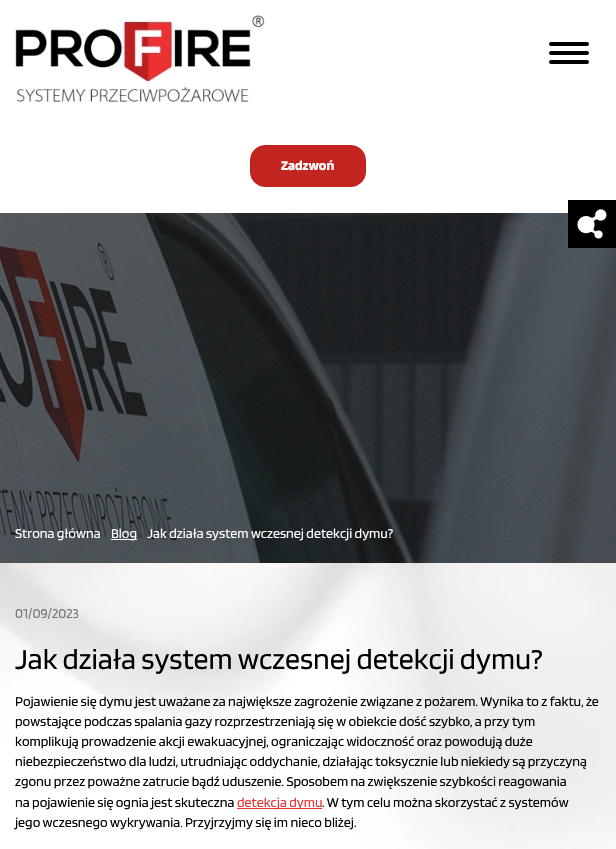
void draw(SkCanvas* canvas) {
    SkPaint paint;
    paint.setAntiAlias(true);
    auto face = [&](const char* family, int weight, float size, bool italic = false) {
        SkFontStyle style(weight, SkFontStyle::kNormal_Width,
            italic ? SkFontStyle::kItalic_Slant : SkFontStyle::kUpright_Slant);
        SkFont result(fontMgr->matchFamilyStyle(family, style), size);
        result.setSubpixel(true);
        return result;
    };
    auto write = [&](const char* s, float x, float y, const SkFont& font, SkColor color) {
        SkPaint ink(SkColor4f::FromColor(color));
        ink.setAntiAlias(true);
        canvas->drawString(s, x, y, font, ink);
    };
    auto block = [&](float x, float y, float w, float h, SkColor color) {
        SkPaint ink(SkColor4f::FromColor(color));
        ink.setAntiAlias(true);
        canvas->drawRect(SkRect::MakeXYWH(x, y, w, h), ink);
    };
    auto card = [&](float x, float y, float w, float h, float radius, SkColor color) {
        SkPaint ink(SkColor4f::FromColor(color));
        ink.setAntiAlias(true);
        canvas->drawRoundRect(SkRect::MakeXYWH(x, y, w, h), radius, radius, ink);
    };
    auto paste = [&](const char* path, float x, float y, float w, float h) {
        auto image = SkImages::DeferredFromEncodedData(SkData::MakeFromFileName(path));
        canvas->drawImageRect(image, SkRect::MakeXYWH(x, y, w, h), SkSamplingOptions());
    };
    canvas->clear(SK_ColorWHITE);
    paste("pic1.png", 15, 15, 250, 88);
    card(549, 42, 40, 4, 2, SK_ColorBLACK);
    card(549, 51, 40, 4, 2, SK_ColorBLACK);
    card(549, 60, 40, 4, 2, SK_ColorBLACK);
    paint.setColor(SkColorSetRGB(194, 37, 31));
    canvas->drawRoundRect(SkRect::MakeXYWH(250.5f, 145.5f, 115, 41), 14.5f, 14.5f, paint);
    paint.setStyle(SkPaint::kStroke_Style);
    paint.setStrokeWidth(1);
    paint.setColor(SkColorSetRGB(192, 31, 30));
    canvas->drawRoundRect(SkRect::MakeXYWH(250.5f, 145.5f, 115, 41), 14.5f, 14.5f, paint);
    auto kFont1 = face("Blinker", 700, 14);
    write("Zadzwoń", 281, 170, kFont1, SK_ColorWHITE);
    paste("pic3.png", 0, 213, 616, 350);
    block(568, 200, 48, 48, SK_ColorBLACK);
    paste("pic2.png", 577, 209, 30, 30);
    auto kFont2 = face("Blinker", 400, 14);
    write("Strona główna", 15, 538, kFont2, SK_ColorWHITE);
    block(111, 539, 26, 1, SK_ColorWHITE);
    write("Blog", 111, 538, kFont2, SK_ColorWHITE);
    write("Jak działa system wczesnej detekcji dymu?", 147, 538, kFont2, SK_ColorWHITE);
    paste("pic4.png", 0, 563, 616, 286);
    write("01/09/2023", 15, 618, kFont2, SkColorSetRGB(119, 119, 119));
    auto kFont3 = face("Blinker", 400, 30);
    write("Jak działa system wczesnej detekcji dymu?", 15, 669, kFont3, SK_ColorBLACK);
    write("Pojawienie się dymu jest uważane za największe zagrożenie związane z pożarem. Wynika to z faktu, że", 15, 706, kFont2, SK_ColorBLACK);
    write("powstające podczas spalania gazy rozprzestrzeniają się w obiekcie dość szybko, a przy tym", 15, 726, kFont2, SK_ColorBLACK);
    write("komplikują prowadzenie akcji ewakuacyjnej, ograniczając widoczność oraz powodują duże", 15, 746, kFont2, SK_ColorBLACK);
    write("niebezpieczeństwo dla ludzi, utrudniając oddychanie, działając toksycznie lub niekiedy są przyczyną", 15, 766, kFont2, SK_ColorBLACK);
    write("zgonu przez poważne zatrucie bądź uduszenie. Sposobem na zwiększenie szybkości reagowania", 15, 786, kFont2, SK_ColorBLACK);
    write("na pojawienie się ognia jest skuteczna", 15, 807, kFont2, SK_ColorBLACK);
    block(237, 808, 85, 1, SkColorSetRGB(236, 49, 48));
    write("detekcja dymu", 237, 807, kFont2, SkColorSetRGB(236, 49, 48));
    write(". W tym celu można skorzystać z systemów", 322, 807, kFont2, SK_ColorBLACK);
    write("jego wczesnego wykrywania. Przyjrzyjmy się im nieco bliżej.", 15, 827, kFont2, SK_ColorBLACK);
}
